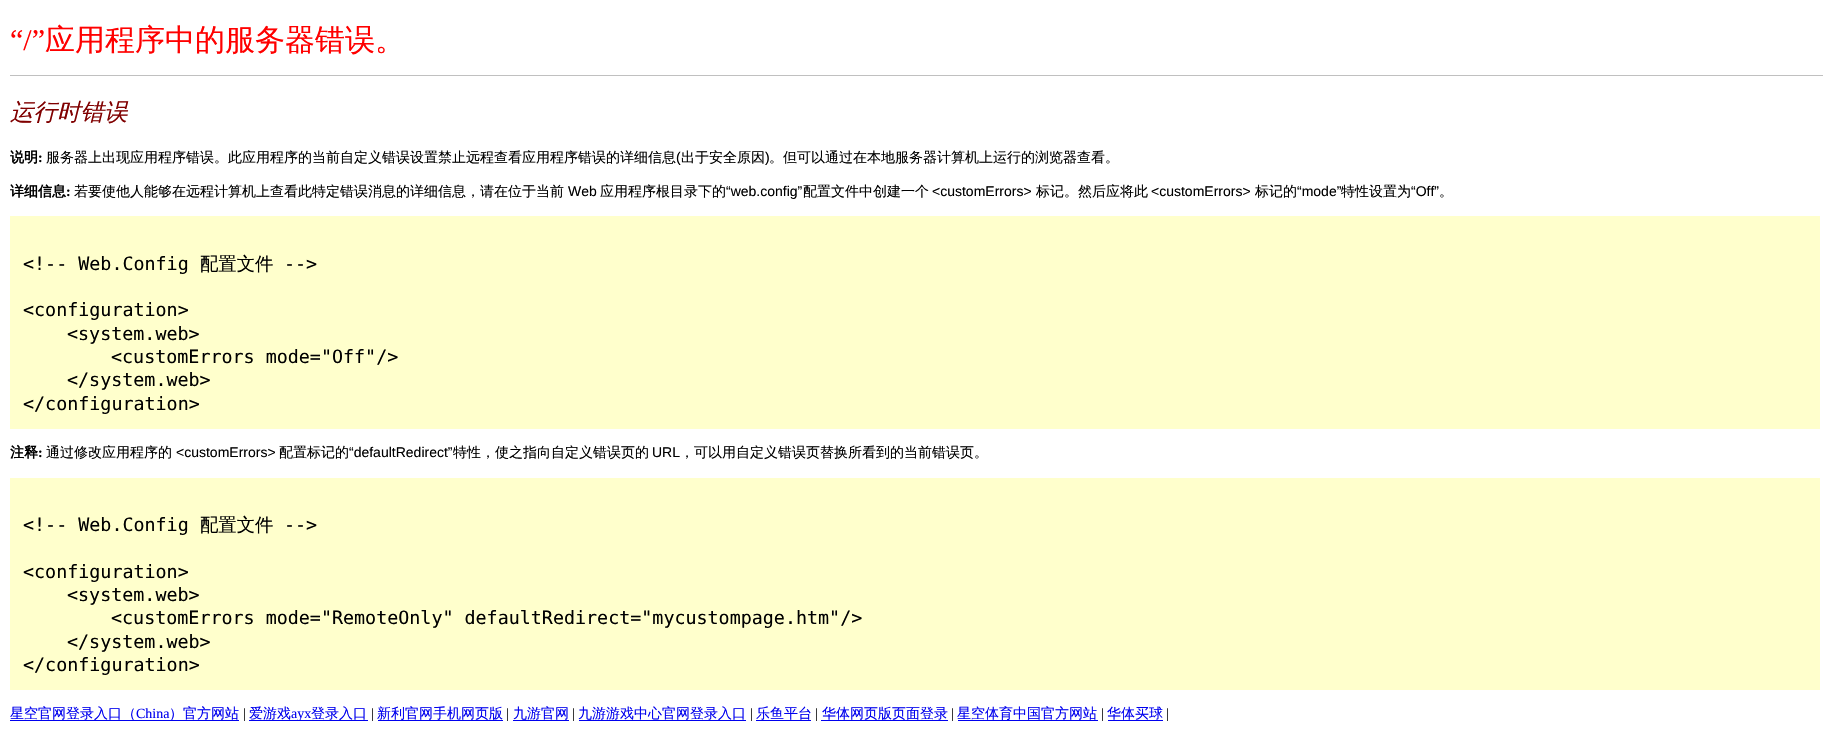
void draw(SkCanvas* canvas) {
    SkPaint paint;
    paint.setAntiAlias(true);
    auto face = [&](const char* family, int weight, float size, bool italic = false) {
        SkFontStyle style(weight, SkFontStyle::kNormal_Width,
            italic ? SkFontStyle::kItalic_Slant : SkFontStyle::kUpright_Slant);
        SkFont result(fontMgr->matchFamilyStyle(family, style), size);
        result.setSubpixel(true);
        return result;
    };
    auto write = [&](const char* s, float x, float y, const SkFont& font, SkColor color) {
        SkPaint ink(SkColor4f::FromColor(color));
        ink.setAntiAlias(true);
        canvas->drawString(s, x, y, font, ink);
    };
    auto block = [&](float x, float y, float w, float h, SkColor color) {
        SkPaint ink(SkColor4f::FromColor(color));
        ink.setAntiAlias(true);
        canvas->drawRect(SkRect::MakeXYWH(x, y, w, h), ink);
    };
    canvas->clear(SK_ColorWHITE);
    auto kFont1 = face("Liberation Serif", 400, 30);
    write("“/”", 10, 50, kFont1, SkColorSetRGB(255, 0, 0));
    auto kFont2 = face("WenQuanYi Zen Hei", 500, 30);
    write("应用程序中的服务器错误。", 45, 50, kFont2, SkColorSetRGB(255, 0, 0));
    block(10, 75, 1813, 1, SkColorSetRGB(192, 192, 192));
    auto kFont3 = face("WenQuanYi Zen Hei", 500, 23.5f, true);
    write("运行时错误", 10, 120, kFont3, SkColorSetRGB(128, 0, 0));
    auto kFont4 = face("WenQuanYi Zen Hei", 700, 14);
    write("说明", 10, 162, kFont4, SK_ColorBLACK);
    auto kFont5 = face("Liberation Serif", 700, 14);
    write(":", 38, 162, kFont5, SK_ColorBLACK);
    auto kFont6 = face("WenQuanYi Zen Hei", 500, 14);
    write("服务器上出现应用程序错误。此应用程序的当前自定义错误设置禁止远程查看应用程序错误的详细信息", 46, 162, kFont6, SK_ColorBLACK);
    auto kFont7 = face("Liberation Sans", 400, 14);
    write("(", 676, 162, kFont7, SK_ColorBLACK);
    write("出于安全原因", 681, 162, kFont6, SK_ColorBLACK);
    write(")", 765, 162, kFont7, SK_ColorBLACK);
    write("。但可以通过在本地服务器计算机上运行的浏览器查看。", 769, 162, kFont6, SK_ColorBLACK);
    write("详细信息", 10, 196, kFont4, SK_ColorBLACK);
    write(":", 66, 196, kFont5, SK_ColorBLACK);
    write("若要使他人能够在远程计算机上查看此特定错误消息的详细信息，请在位于当前", 74, 196, kFont6, SK_ColorBLACK);
    write("Web", 568, 196, kFont7, SK_ColorBLACK);
    write("应用程序根目录下的", 600, 196, kFont6, SK_ColorBLACK);
    write("“web.config”", 726, 196, kFont7, SK_ColorBLACK);
    write("配置文件中创建一个", 803, 196, kFont6, SK_ColorBLACK);
    write("<customErrors>", 932, 196, kFont7, SK_ColorBLACK);
    write("标记。然后应将此", 1036, 196, kFont6, SK_ColorBLACK);
    write("<customErrors>", 1151, 196, kFont7, SK_ColorBLACK);
    write("标记的", 1255, 196, kFont6, SK_ColorBLACK);
    write("“mode”", 1297, 196, kFont7, SK_ColorBLACK);
    write("特性设置为", 1341, 196, kFont6, SK_ColorBLACK);
    write("“Off”", 1411, 196, kFont7, SK_ColorBLACK);
    write("。", 1439, 196, kFont6, SK_ColorBLACK);
    block(10, 216, 1810, 213, SkColorSetRGB(255, 255, 204));
    auto kFont8 = face("DejaVu Sans Mono", 400, 18.35f);
    write("<!-- Web.Config", 23, 270, kFont8, SK_ColorBLACK);
    auto kFont9 = face("WenQuanYi Zen Hei", 500, 18.35f);
    write("配置文件", 200, 270, kFont9, SK_ColorBLACK);
    write("-->", 284, 270, kFont8, SK_ColorBLACK);
    write("<configuration>", 23, 316, kFont8, SK_ColorBLACK);
    write("<system.web>", 67, 340, kFont8, SK_ColorBLACK);
    write("<customErrors mode=\"Off\"/>", 111, 363, kFont8, SK_ColorBLACK);
    write("</system.web>", 67, 386, kFont8, SK_ColorBLACK);
    write("</configuration>", 23, 410, kFont8, SK_ColorBLACK);
    write("注释", 10, 457, kFont4, SK_ColorBLACK);
    write(":", 38, 457, kFont5, SK_ColorBLACK);
    write("通过修改应用程序的", 46, 457, kFont6, SK_ColorBLACK);
    write("<customErrors>", 176, 457, kFont7, SK_ColorBLACK);
    write("配置标记的", 279, 457, kFont6, SK_ColorBLACK);
    write("“defaultRedirect”", 349, 457, kFont7, SK_ColorBLACK);
    write("特性，使之指向自定义错误页的", 453, 457, kFont6, SK_ColorBLACK);
    write("URL", 652, 457, kFont7, SK_ColorBLACK);
    write("，可以用自定义错误页替换所看到的当前错误页。", 680, 457, kFont6, SK_ColorBLACK);
    block(10, 478, 1810, 212, SkColorSetRGB(255, 255, 204));
    write("<!-- Web.Config", 23, 531, kFont8, SK_ColorBLACK);
    write("配置文件", 200, 531, kFont9, SK_ColorBLACK);
    write("-->", 284, 531, kFont8, SK_ColorBLACK);
    write("<configuration>", 23, 578, kFont8, SK_ColorBLACK);
    write("<system.web>", 67, 601, kFont8, SK_ColorBLACK);
    write("<customErrors mode=\"RemoteOnly\" defaultRedirect=\"mycustompage.htm\"/>", 111, 624, kFont8, SK_ColorBLACK);
    write("</system.web>", 67, 648, kFont8, SK_ColorBLACK);
    write("</configuration>", 23, 671, kFont8, SK_ColorBLACK);
    block(10, 720, 229, 1, SkColorSetRGB(0, 0, 238));
    write("星空官网登录入口（", 10, 718, kFont6, SkColorSetRGB(0, 0, 238));
    auto kFont10 = face("Liberation Serif", 400, 14);
    write("China", 136, 718, kFont10, SkColorSetRGB(0, 0, 238));
    write("）官方网站", 169, 718, kFont6, SkColorSetRGB(0, 0, 238));
    write("|", 243, 718, kFont10, SK_ColorBLACK);
    write("爱游戏", 249, 718, kFont6, SkColorSetRGB(0, 0, 238));
    block(249, 720, 119, 1, SkColorSetRGB(0, 0, 238));
    write("ayx", 291, 718, kFont10, SkColorSetRGB(0, 0, 238));
    write("登录入口", 311, 718, kFont6, SkColorSetRGB(0, 0, 238));
    write("|", 371, 718, kFont10, SK_ColorBLACK);
    write("新利官网手机网页版", 377, 718, kFont6, SkColorSetRGB(0, 0, 238));
    block(378, 720, 125, 1, SkColorSetRGB(0, 0, 238));
    write("|", 506, 718, kFont10, SK_ColorBLACK);
    write("九游官网", 513, 718, kFont6, SkColorSetRGB(0, 0, 238));
    block(513, 720, 56, 1, SkColorSetRGB(0, 0, 238));
    write("|", 572, 718, kFont10, SK_ColorBLACK);
    block(579, 720, 167, 1, SkColorSetRGB(0, 0, 238));
    write("九游游戏中心官网登录入口", 578, 718, kFont6, SkColorSetRGB(0, 0, 238));
    write("|", 750, 718, kFont10, SK_ColorBLACK);
    write("乐鱼平台", 756, 718, kFont6, SkColorSetRGB(0, 0, 238));
    block(756, 720, 55, 1, SkColorSetRGB(0, 0, 238));
    write("|", 815, 718, kFont10, SK_ColorBLACK);
    write("华体网页版页面登录", 822, 718, kFont6, SkColorSetRGB(0, 0, 238));
    block(821, 720, 127, 1, SkColorSetRGB(0, 0, 238));
    write("|", 951, 718, kFont10, SK_ColorBLACK);
    block(958, 720, 140, 1, SkColorSetRGB(0, 0, 238));
    write("星空体育中国官方网站", 957, 718, kFont6, SkColorSetRGB(0, 0, 238));
    write("|", 1101, 718, kFont10, SK_ColorBLACK);
    write("华体买球", 1107, 718, kFont6, SkColorSetRGB(0, 0, 238));
    block(1108, 720, 55, 1, SkColorSetRGB(0, 0, 238));
    write("|", 1166, 718, kFont10, SK_ColorBLACK);
}
